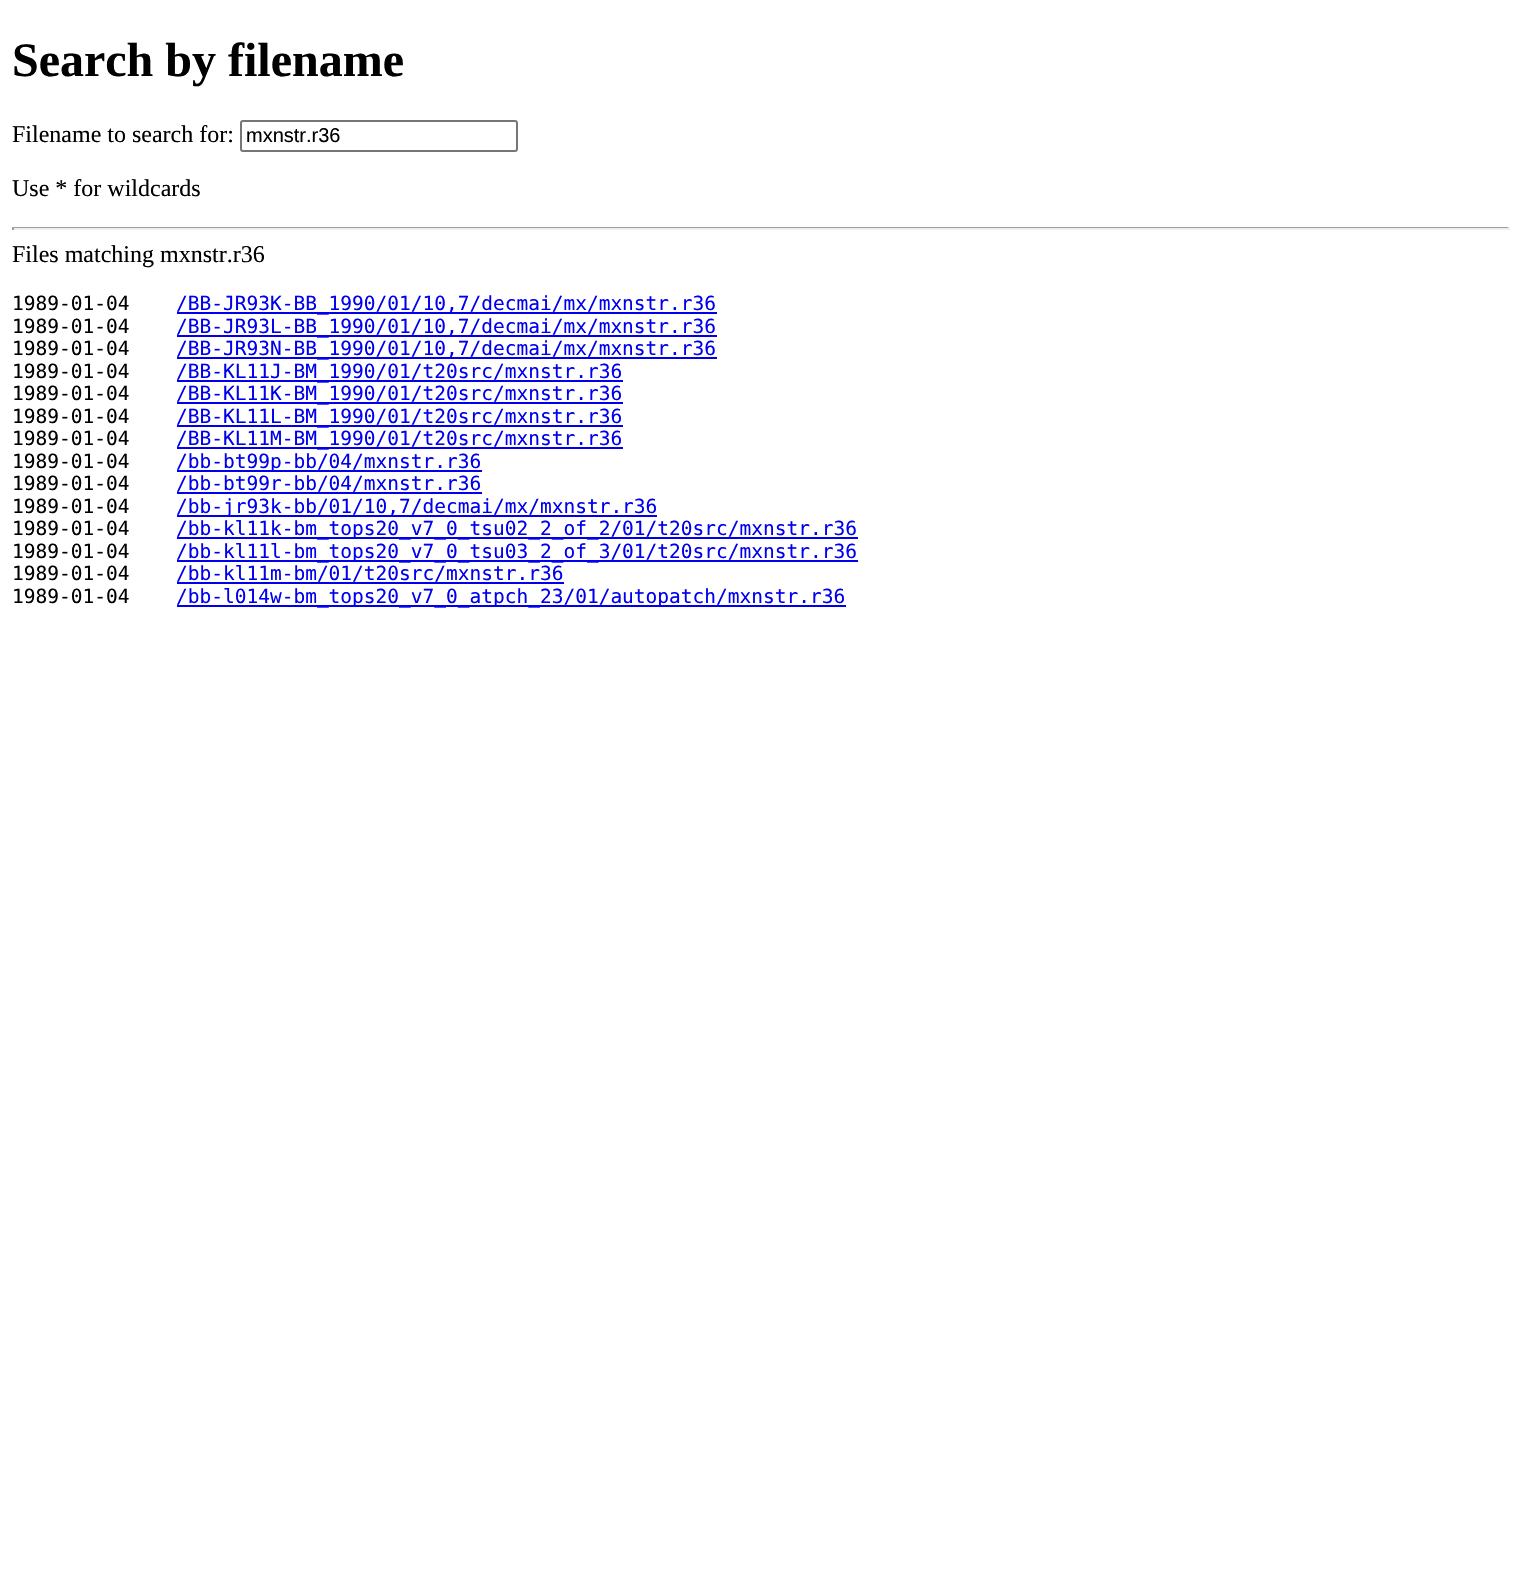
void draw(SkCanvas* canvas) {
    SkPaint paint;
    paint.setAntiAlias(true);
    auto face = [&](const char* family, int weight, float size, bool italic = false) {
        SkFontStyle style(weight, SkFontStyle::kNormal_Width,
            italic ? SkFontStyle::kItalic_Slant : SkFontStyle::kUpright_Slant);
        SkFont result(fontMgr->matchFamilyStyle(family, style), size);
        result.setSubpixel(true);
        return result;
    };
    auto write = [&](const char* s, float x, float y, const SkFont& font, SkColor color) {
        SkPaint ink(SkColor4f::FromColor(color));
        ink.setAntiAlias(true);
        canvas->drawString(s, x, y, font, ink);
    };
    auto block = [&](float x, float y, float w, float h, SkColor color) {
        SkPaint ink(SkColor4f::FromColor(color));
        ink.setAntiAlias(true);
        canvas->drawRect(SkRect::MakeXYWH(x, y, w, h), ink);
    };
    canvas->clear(SK_ColorWHITE);
    auto kFont1 = face("Liberation Serif", 700, 48);
    write("Search by filename", 12, 76, kFont1, SK_ColorBLACK);
    auto kFont2 = face("Liberation Serif", 400, 24);
    write("Filename to search for:", 12, 142, kFont2, SK_ColorBLACK);
    paint.setStyle(SkPaint::kStroke_Style);
    paint.setStrokeWidth(2);
    paint.setColor(SkColorSetRGB(118, 118, 118));
    canvas->drawRoundRect(SkRect::MakeXYWH(241, 121, 276, 30), 2, 2, paint);
    auto kFont3 = face("Liberation Sans", 400, 20);
    write("mxnstr.r36", 246, 142, kFont3, SK_ColorBLACK);
    write("Use * for wildcards", 12, 196, kFont2, SK_ColorBLACK);
    block(12, 227, 1497, 1, SkColorSetRGB(159, 159, 159));
    block(1508, 227, 2, 3, SkColorSetRGB(238, 238, 238));
    block(12, 228, 1497, 2, SkColorSetRGB(238, 238, 238));
    block(12, 227, 2, 3, SkColorSetRGB(159, 159, 159));
    write("Files matching mxnstr.r36", 12, 262, kFont2, SK_ColorBLACK);
    auto kFont4 = face("DejaVu Sans Mono", 400, 19.5f);
    write("1989-01-04", 12, 310, kFont4, SK_ColorBLACK);
    block(177, 312, 540, 2, SkColorSetRGB(0, 0, 238));
    write("/BB-JR93K-BB_1990/01/10,7/decmai/mx/mxnstr.r36", 176, 310, kFont4, SkColorSetRGB(0, 0, 238));
    write("1989-01-04", 12, 333, kFont4, SK_ColorBLACK);
    block(177, 335, 540, 2, SkColorSetRGB(0, 0, 238));
    write("/BB-JR93L-BB_1990/01/10,7/decmai/mx/mxnstr.r36", 176, 333, kFont4, SkColorSetRGB(0, 0, 238));
    write("1989-01-04", 12, 355, kFont4, SK_ColorBLACK);
    block(177, 357, 540, 2, SkColorSetRGB(0, 0, 238));
    write("/BB-JR93N-BB_1990/01/10,7/decmai/mx/mxnstr.r36", 176, 355, kFont4, SkColorSetRGB(0, 0, 238));
    write("1989-01-04", 12, 378, kFont4, SK_ColorBLACK);
    block(177, 380, 446, 2, SkColorSetRGB(0, 0, 238));
    write("/BB-KL11J-BM_1990/01/t20src/mxnstr.r36", 176, 378, kFont4, SkColorSetRGB(0, 0, 238));
    write("1989-01-04", 12, 400, kFont4, SK_ColorBLACK);
    block(177, 402, 446, 2, SkColorSetRGB(0, 0, 238));
    write("/BB-KL11K-BM_1990/01/t20src/mxnstr.r36", 176, 400, kFont4, SkColorSetRGB(0, 0, 238));
    write("1989-01-04", 12, 423, kFont4, SK_ColorBLACK);
    block(177, 425, 446, 2, SkColorSetRGB(0, 0, 238));
    write("/BB-KL11L-BM_1990/01/t20src/mxnstr.r36", 176, 423, kFont4, SkColorSetRGB(0, 0, 238));
    write("1989-01-04", 12, 445, kFont4, SK_ColorBLACK);
    block(177, 447, 446, 2, SkColorSetRGB(0, 0, 238));
    write("/BB-KL11M-BM_1990/01/t20src/mxnstr.r36", 176, 445, kFont4, SkColorSetRGB(0, 0, 238));
    write("1989-01-04", 12, 468, kFont4, SK_ColorBLACK);
    block(177, 470, 305, 2, SkColorSetRGB(0, 0, 238));
    write("/bb-bt99p-bb/04/mxnstr.r36", 176, 468, kFont4, SkColorSetRGB(0, 0, 238));
    write("1989-01-04", 12, 490, kFont4, SK_ColorBLACK);
    write("/bb-bt99r-bb/04/mxnstr.r36", 176, 490, kFont4, SkColorSetRGB(0, 0, 238));
    block(177, 492, 305, 2, SkColorSetRGB(0, 0, 238));
    write("1989-01-04", 12, 513, kFont4, SK_ColorBLACK);
    block(177, 515, 480, 2, SkColorSetRGB(0, 0, 238));
    write("/bb-jr93k-bb/01/10,7/decmai/mx/mxnstr.r36", 176, 513, kFont4, SkColorSetRGB(0, 0, 238));
    write("1989-01-04", 12, 535, kFont4, SK_ColorBLACK);
    block(177, 537, 681, 2, SkColorSetRGB(0, 0, 238));
    write("/bb-kl11k-bm_tops20_v7_0_tsu02_2_of_2/01/t20src/mxnstr.r36", 176, 535, kFont4, SkColorSetRGB(0, 0, 238));
    write("1989-01-04", 12, 558, kFont4, SK_ColorBLACK);
    block(177, 560, 681, 2, SkColorSetRGB(0, 0, 238));
    write("/bb-kl11l-bm_tops20_v7_0_tsu03_2_of_3/01/t20src/mxnstr.r36", 176, 558, kFont4, SkColorSetRGB(0, 0, 238));
    write("1989-01-04", 12, 580, kFont4, SK_ColorBLACK);
    write("/bb-kl11m-bm/01/t20src/mxnstr.r36", 176, 580, kFont4, SkColorSetRGB(0, 0, 238));
    block(177, 582, 387, 2, SkColorSetRGB(0, 0, 238));
    write("1989-01-04", 12, 603, kFont4, SK_ColorBLACK);
    block(177, 605, 669, 2, SkColorSetRGB(0, 0, 238));
    write("/bb-l014w-bm_tops20_v7_0_atpch_23/01/autopatch/mxnstr.r36", 176, 603, kFont4, SkColorSetRGB(0, 0, 238));
}
